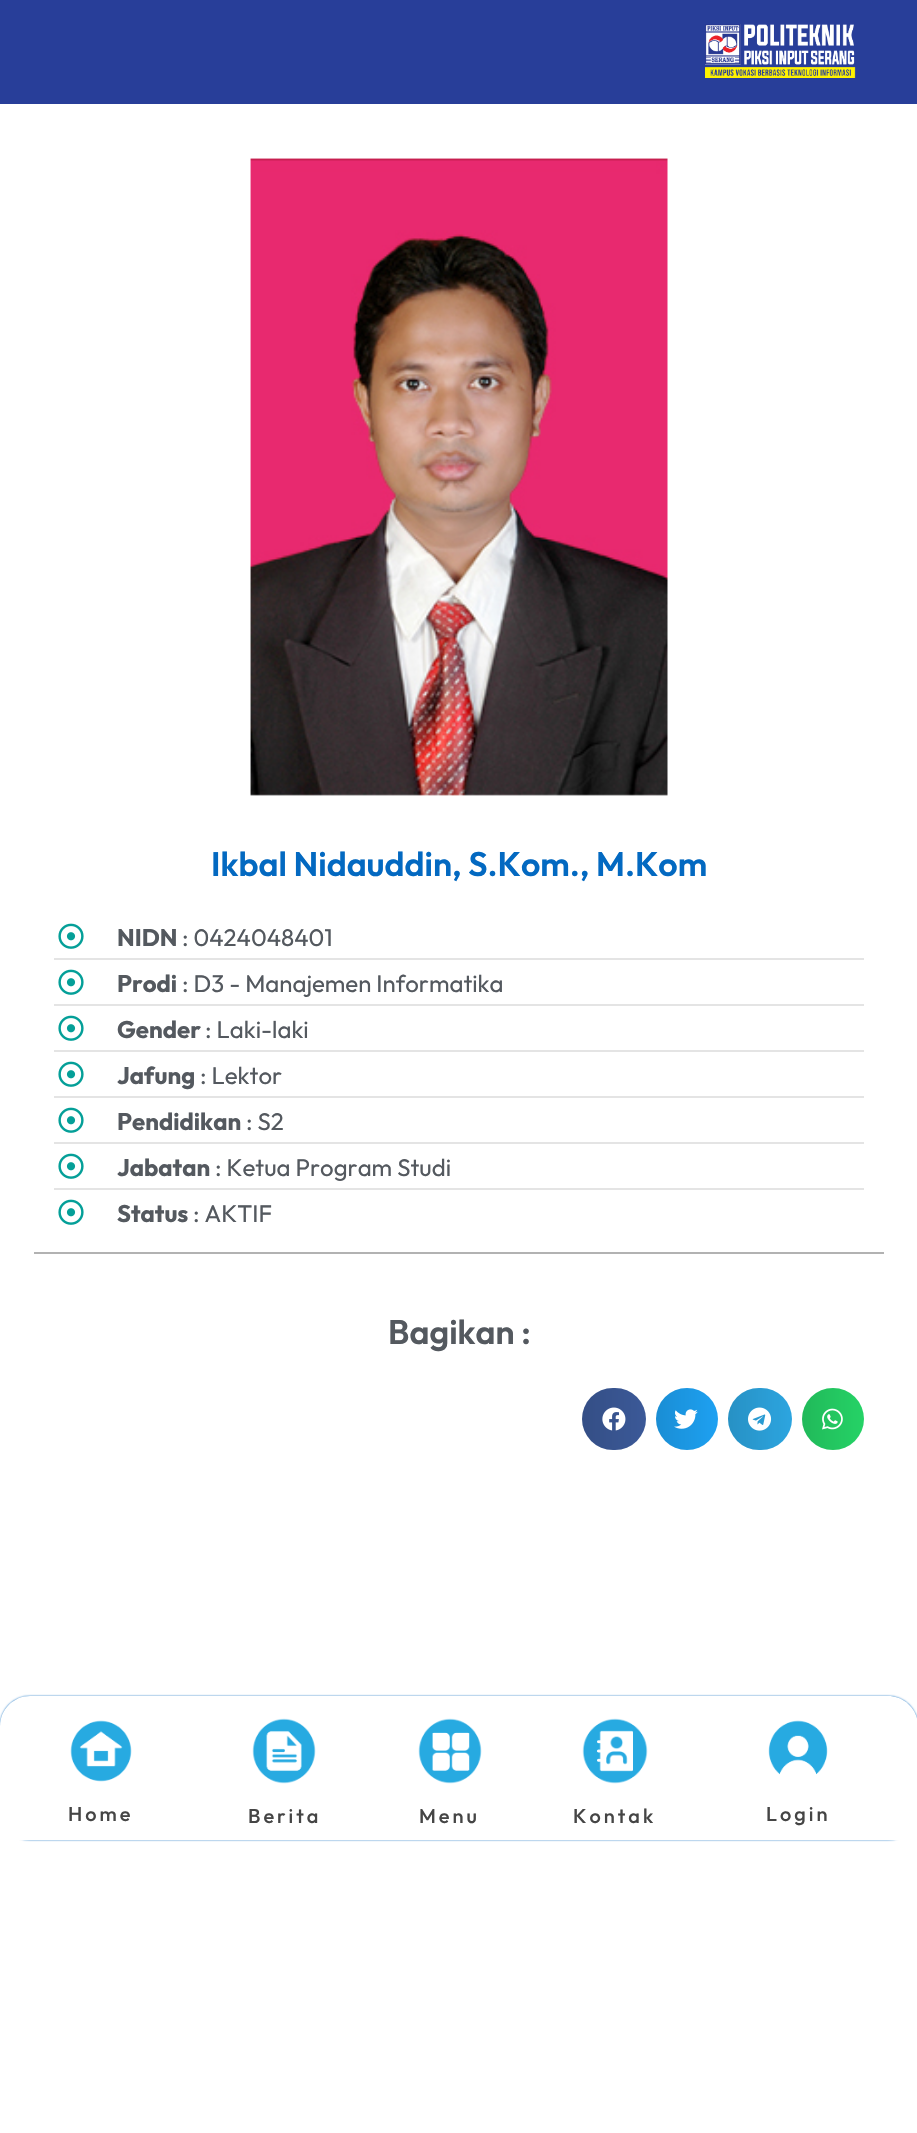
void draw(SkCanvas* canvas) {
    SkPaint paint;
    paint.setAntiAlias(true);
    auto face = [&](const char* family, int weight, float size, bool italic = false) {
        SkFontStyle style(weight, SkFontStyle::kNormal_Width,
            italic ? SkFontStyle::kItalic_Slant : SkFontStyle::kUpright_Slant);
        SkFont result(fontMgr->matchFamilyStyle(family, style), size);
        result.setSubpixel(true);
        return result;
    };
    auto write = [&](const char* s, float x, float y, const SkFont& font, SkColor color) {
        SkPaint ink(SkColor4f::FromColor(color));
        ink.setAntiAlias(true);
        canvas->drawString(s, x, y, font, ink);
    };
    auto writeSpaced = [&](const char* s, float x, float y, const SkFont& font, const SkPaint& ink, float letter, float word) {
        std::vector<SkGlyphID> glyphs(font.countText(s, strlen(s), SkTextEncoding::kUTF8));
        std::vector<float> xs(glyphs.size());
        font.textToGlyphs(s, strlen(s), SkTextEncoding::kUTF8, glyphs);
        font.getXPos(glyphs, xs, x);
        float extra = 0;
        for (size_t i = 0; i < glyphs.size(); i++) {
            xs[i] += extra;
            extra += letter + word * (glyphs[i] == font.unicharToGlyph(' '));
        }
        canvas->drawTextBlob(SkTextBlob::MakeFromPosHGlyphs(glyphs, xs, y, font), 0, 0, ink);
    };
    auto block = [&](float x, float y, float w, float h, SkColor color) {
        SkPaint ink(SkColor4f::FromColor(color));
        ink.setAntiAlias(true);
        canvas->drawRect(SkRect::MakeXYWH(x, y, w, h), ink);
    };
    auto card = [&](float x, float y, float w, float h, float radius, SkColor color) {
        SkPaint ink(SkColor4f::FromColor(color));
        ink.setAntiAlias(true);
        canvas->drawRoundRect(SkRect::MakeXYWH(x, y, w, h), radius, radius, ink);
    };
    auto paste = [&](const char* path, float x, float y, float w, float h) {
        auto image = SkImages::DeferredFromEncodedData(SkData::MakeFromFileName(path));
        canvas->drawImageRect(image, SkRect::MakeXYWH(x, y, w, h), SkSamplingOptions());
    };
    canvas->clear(SK_ColorWHITE);
    block(0, 0, 917, 104, SkColorSetRGB(40, 62, 153));
    paste("pic1.png", 705, 24, 151, 54);
    paste("pic2.png", 250, 158, 418, 638);
    auto kFont1 = face("Outfit", 600, 34);
    write("Ikbal Nidauddin, S.Kom., M.Kom", 211, 876, kFont1, SkColorSetRGB(3, 105, 193));
    paste("pic3.png", 58, 923, 26, 26);
    auto kFont2 = face("Outfit", 700, 24);
    write("NIDN", 117, 946, kFont2, SkColorSetRGB(84, 89, 95));
    auto kFont3 = face("Outfit", 400, 24);
    write(": 0424048401", 182, 946, kFont3, SkColorSetRGB(84, 89, 95));
    block(54, 958, 810, 2, SkColorSetRGB(228, 228, 228));
    paste("pic3.png", 58, 969, 26, 26);
    write("Prodi", 117, 992, kFont2, SkColorSetRGB(84, 89, 95));
    write(": D3 - Manajemen Informatika", 182, 992, kFont3, SkColorSetRGB(84, 89, 95));
    block(54, 1004, 810, 2, SkColorSetRGB(228, 228, 228));
    paste("pic3.png", 58, 1015, 26, 26);
    write("Gender", 117, 1038, kFont2, SkColorSetRGB(84, 89, 95));
    write(": Laki-laki", 205, 1038, kFont3, SkColorSetRGB(84, 89, 95));
    block(54, 1050, 810, 2, SkColorSetRGB(228, 228, 228));
    paste("pic3.png", 58, 1061, 26, 26);
    write("Jafung", 117, 1084, kFont2, SkColorSetRGB(84, 89, 95));
    write(": Lektor", 200, 1084, kFont3, SkColorSetRGB(84, 89, 95));
    block(54, 1096, 810, 2, SkColorSetRGB(228, 228, 228));
    paste("pic3.png", 58, 1107, 26, 26);
    write("Pendidikan", 117, 1130, kFont2, SkColorSetRGB(84, 89, 95));
    write(": S2", 246, 1130, kFont3, SkColorSetRGB(84, 89, 95));
    block(54, 1142, 810, 2, SkColorSetRGB(228, 228, 228));
    paste("pic3.png", 58, 1153, 26, 26);
    write("Jabatan", 117, 1176, kFont2, SkColorSetRGB(84, 89, 95));
    write(": Ketua Program Studi", 215, 1176, kFont3, SkColorSetRGB(84, 89, 95));
    block(54, 1188, 810, 2, SkColorSetRGB(228, 228, 228));
    paste("pic3.png", 58, 1199, 26, 26);
    write("Status", 117, 1222, kFont2, SkColorSetRGB(84, 89, 95));
    write(": AKTIF", 193, 1222, kFont3, SkColorSetRGB(84, 89, 95));
    block(34, 1252, 850, 2, SkColorSetRGB(178, 178, 178));
    write("Bagikan :", 388, 1344, kFont1, SkColorSetRGB(84, 89, 95));
    card(582, 1388, 64, 62, 31, SkColorSetRGB(59, 89, 152));
    {
        const SkColor colors[] = {SkColorSetARGB(31, 0, 0, 0), SkColorSetARGB(0, 0, 0, 0)};
        const float stops[] = {0, 1};
        const SkPoint ends[] = {{582, 1419}, {646, 1419}};
        paint.setShader(SkGradientShader::MakeLinear(ends, colors, stops, 2, SkTileMode::kClamp));
        paint.setAlpha(255);
    }
    canvas->drawRoundRect(SkRect::MakeXYWH(582, 1388, 64, 62), 31, 31, paint);
    paste("pic4.png", 602, 1407, 24, 24);
    paint.setShader(nullptr);
    paint.setColor(SkColorSetRGB(29, 161, 242));
    canvas->drawCircle(687, 1419, 31, paint);
    {
        const SkColor colors[] = {SkColorSetARGB(31, 0, 0, 0), SkColorSetARGB(0, 0, 0, 0)};
        const float stops[] = {0, 1};
        const SkPoint ends[] = {{656, 1419}, {718, 1419}};
        paint.setShader(SkGradientShader::MakeLinear(ends, colors, stops, 2, SkTileMode::kClamp));
        paint.setAlpha(255);
    }
    canvas->drawCircle(687, 1419, 31, paint);
    paste("pic5.png", 674, 1409, 24, 20);
    card(728, 1388, 64, 62, 31, SkColorSetRGB(44, 165, 224));
    {
        const SkColor colors[] = {SkColorSetARGB(31, 0, 0, 0), SkColorSetARGB(0, 0, 0, 0)};
        const float stops[] = {0, 1};
        const SkPoint ends[] = {{728, 1419}, {792, 1419}};
        paint.setShader(SkGradientShader::MakeLinear(ends, colors, stops, 2, SkTileMode::kClamp));
        paint.setAlpha(255);
    }
    canvas->drawRoundRect(SkRect::MakeXYWH(728, 1388, 64, 62), 31, 31, paint);
    paste("pic6.png", 748, 1407, 24, 24);
    paint.setShader(nullptr);
    paint.setColor(SkColorSetRGB(37, 211, 102));
    canvas->drawCircle(833, 1419, 31, paint);
    {
        const SkColor colors[] = {SkColorSetARGB(31, 0, 0, 0), SkColorSetARGB(0, 0, 0, 0)};
        const float stops[] = {0, 1};
        const SkPoint ends[] = {{802, 1419}, {864, 1419}};
        paint.setShader(SkGradientShader::MakeLinear(ends, colors, stops, 2, SkTileMode::kClamp));
        paint.setAlpha(255);
    }
    canvas->drawCircle(833, 1419, 31, paint);
    paste("pic7.png", 822, 1408, 21, 22);
    paint.setShader(nullptr);
    paint.setColor(SkColorSetRGB(3, 105, 193));
    paint.setMaskFilter(SkMaskFilter::MakeBlur(kNormal_SkBlurStyle, 1));
    canvas->drawRoundRect(SkRect::MakeXYWH(0, 1696, 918, 144), 30, 30, paint);
    paint.setMaskFilter(nullptr);
    paint.setColor(SK_ColorWHITE);
    canvas->drawPath(SkPathBuilder().moveTo(30, 1696).lineTo(888, 1696).cubicTo(904.5f, 1696, 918, 1709.5f, 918, 1726).lineTo(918, 1840).lineTo(0, 1840).lineTo(0, 1726).cubicTo(0, 1709.5f, 13.5f, 1696, 30, 1696).close().detach(), paint);
    paste("pic8.png", 70, 1720, 62, 62);
    auto kFont4 = face("Outfit", 500, 20);
    paint.setColor(SkColorSetRGB(69, 69, 69));
    writeSpaced("Home", 68, 1821, kFont4, paint, 3, 0);
    paste("pic9.png", 252, 1718, 64, 66);
    writeSpaced("Berita", 248, 1823, kFont4, paint, 3, 0);
    paste("pic10.png", 418, 1718, 64, 66);
    writeSpaced("Menu", 419, 1823, kFont4, paint, 3, 0);
    paste("pic11.png", 582, 1718, 66, 66);
    writeSpaced("Kontak", 573, 1823, kFont4, paint, 3, 0);
    paste("pic12.png", 768, 1720, 60, 55);
    writeSpaced("Login", 766, 1821, kFont4, paint, 3, 0);
}
